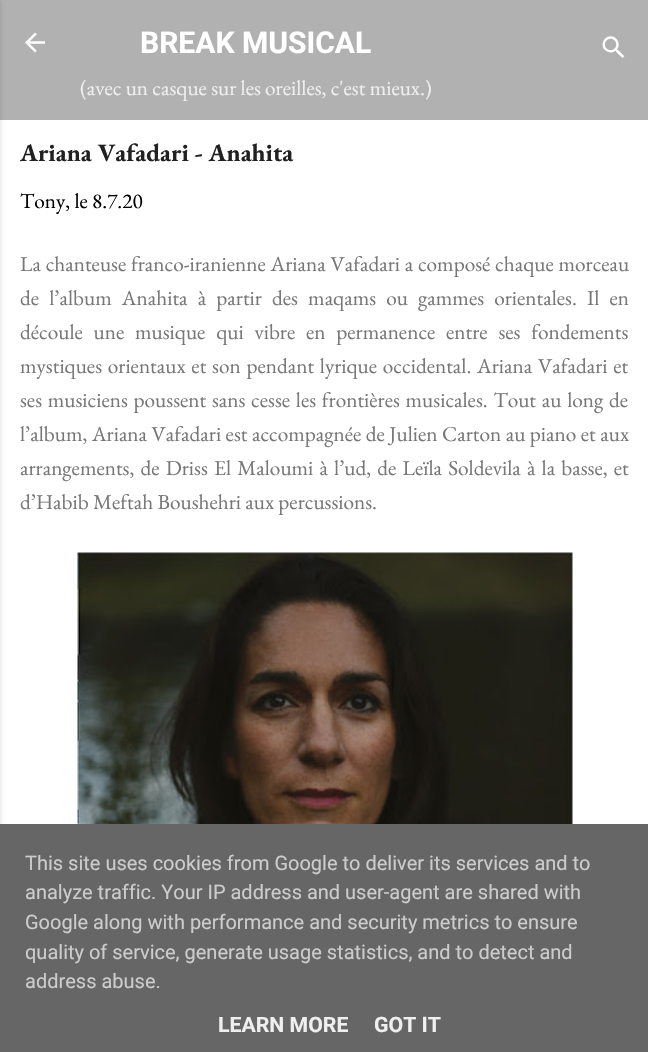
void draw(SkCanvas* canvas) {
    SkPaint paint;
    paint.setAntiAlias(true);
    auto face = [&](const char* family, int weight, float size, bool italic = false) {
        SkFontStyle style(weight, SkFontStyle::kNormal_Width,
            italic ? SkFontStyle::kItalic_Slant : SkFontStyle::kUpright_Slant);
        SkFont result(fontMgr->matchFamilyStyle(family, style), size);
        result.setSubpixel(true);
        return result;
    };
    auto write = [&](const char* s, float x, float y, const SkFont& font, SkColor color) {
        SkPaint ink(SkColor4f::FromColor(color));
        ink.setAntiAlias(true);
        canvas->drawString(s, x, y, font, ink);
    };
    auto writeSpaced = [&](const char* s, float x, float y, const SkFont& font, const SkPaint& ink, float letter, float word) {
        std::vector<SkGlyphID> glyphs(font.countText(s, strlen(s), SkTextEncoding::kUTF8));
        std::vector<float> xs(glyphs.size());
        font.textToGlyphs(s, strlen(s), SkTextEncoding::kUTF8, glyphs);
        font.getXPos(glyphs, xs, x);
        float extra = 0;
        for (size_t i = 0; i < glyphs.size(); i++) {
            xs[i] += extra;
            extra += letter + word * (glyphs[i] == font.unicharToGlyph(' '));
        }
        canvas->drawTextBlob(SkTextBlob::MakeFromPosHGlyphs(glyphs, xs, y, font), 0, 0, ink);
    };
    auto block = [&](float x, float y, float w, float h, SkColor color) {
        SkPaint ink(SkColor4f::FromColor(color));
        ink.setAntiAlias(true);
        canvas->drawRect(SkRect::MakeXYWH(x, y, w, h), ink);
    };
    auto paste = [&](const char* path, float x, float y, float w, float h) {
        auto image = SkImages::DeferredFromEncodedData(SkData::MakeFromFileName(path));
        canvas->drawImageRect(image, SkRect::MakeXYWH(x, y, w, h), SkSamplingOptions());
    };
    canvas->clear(SkColorSetRGB(177, 177, 177));
    block(0, 120, 648, 704, SK_ColorWHITE);
    paint.setColor(SkColorSetARGB(26, 0, 0, 0));
    paint.setMaskFilter(SkMaskFilter::MakeBlur(kNormal_SkBlurStyle, 2));
    canvas->drawRect(SkRect::MakeXYWH(-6, 1, 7, 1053), paint);
    paint.setMaskFilter(nullptr);
    paste("pic1.png", 25, 32, 20, 21);
    auto kFont1 = face("Roboto", 700, 30);
    write("BREAK MUSICAL", 140, 53, kFont1, SK_ColorWHITE);
    auto kFont2 = face("EB Garamond", 400, 21.25f);
    write("(avec un casque sur les oreilles, c'est mieux.)", 80, 95, kFont2, SkColorSetRGB(239, 239, 239));
    paste("pic2.png", 602, 36, 23, 22);
    auto kFont3 = face("EB Garamond", 700, 25);
    write("Ariana Vafadari - Anahita", 20, 161, kFont3, SkColorSetRGB(33, 33, 33));
    write("Tony, le 8.7.20", 20, 208, kFont2, SK_ColorBLACK);
    paint.setColor(SkColorSetRGB(119, 119, 119));
    writeSpaced("La chanteuse franco-iranienne Ariana Vafadari a composé chaque morceau", 20, 271, kFont2, paint, 0, 0.5f);
    writeSpaced("de l’album Anahita à partir des maqams ou gammes orientales. Il en", 20, 305, kFont2, paint, 0, 5.9f);
    writeSpaced("découle une musique qui vibre en permanence entre ses fondements", 20, 339, kFont2, paint, 0, 6.5f);
    writeSpaced("mystiques orientaux et son pendant lyrique occidental. Ariana Vafadari et", 20, 373, kFont2, paint, 0, 1.5f);
    writeSpaced("ses musiciens poussent sans cesse les frontières musicales. Tout au long de", 20, 407, kFont2, paint, 0, 1.5f);
    writeSpaced("l’album, Ariana Vafadari est accompagnée de Julien Carton au piano et aux", 20, 441, kFont2, paint, 0, 0.25f);
    writeSpaced("arrangements, de Driss El Maloumi à l’ud, de Leïla Soldevila à la basse, et", 20, 475, kFont2, paint, 0, 1.9f);
    write("d’Habib Meftah Boushehri aux percussions.", 20, 509, kFont2, SkColorSetRGB(119, 119, 119));
    paste("pic3.png", 77, 552, 496, 272);
    block(0, 824, 648, 228, SkColorSetRGB(102, 102, 102));
    auto kFont4 = face("Roboto", 400, 20);
    write("This site uses cookies from Google to deliver its services and to", 25, 870, kFont4, SkColorSetRGB(204, 204, 204));
    write("analyze traffic. Your IP address and user-agent are shared with", 25, 899, kFont4, SkColorSetRGB(204, 204, 204));
    write("Google along with performance and security metrics to ensure", 25, 929, kFont4, SkColorSetRGB(204, 204, 204));
    write("quality of service, generate usage statistics, and to detect and", 25, 959, kFont4, SkColorSetRGB(204, 204, 204));
    write("address abuse.", 25, 988, kFont4, SkColorSetRGB(204, 204, 204));
    auto kFont5 = face("Roboto", 700, 21.25f);
    write("LEARN MORE", 218, 1032, kFont5, SkColorSetRGB(239, 239, 239));
    write("GOT IT", 374, 1032, kFont5, SkColorSetRGB(239, 239, 239));
}
